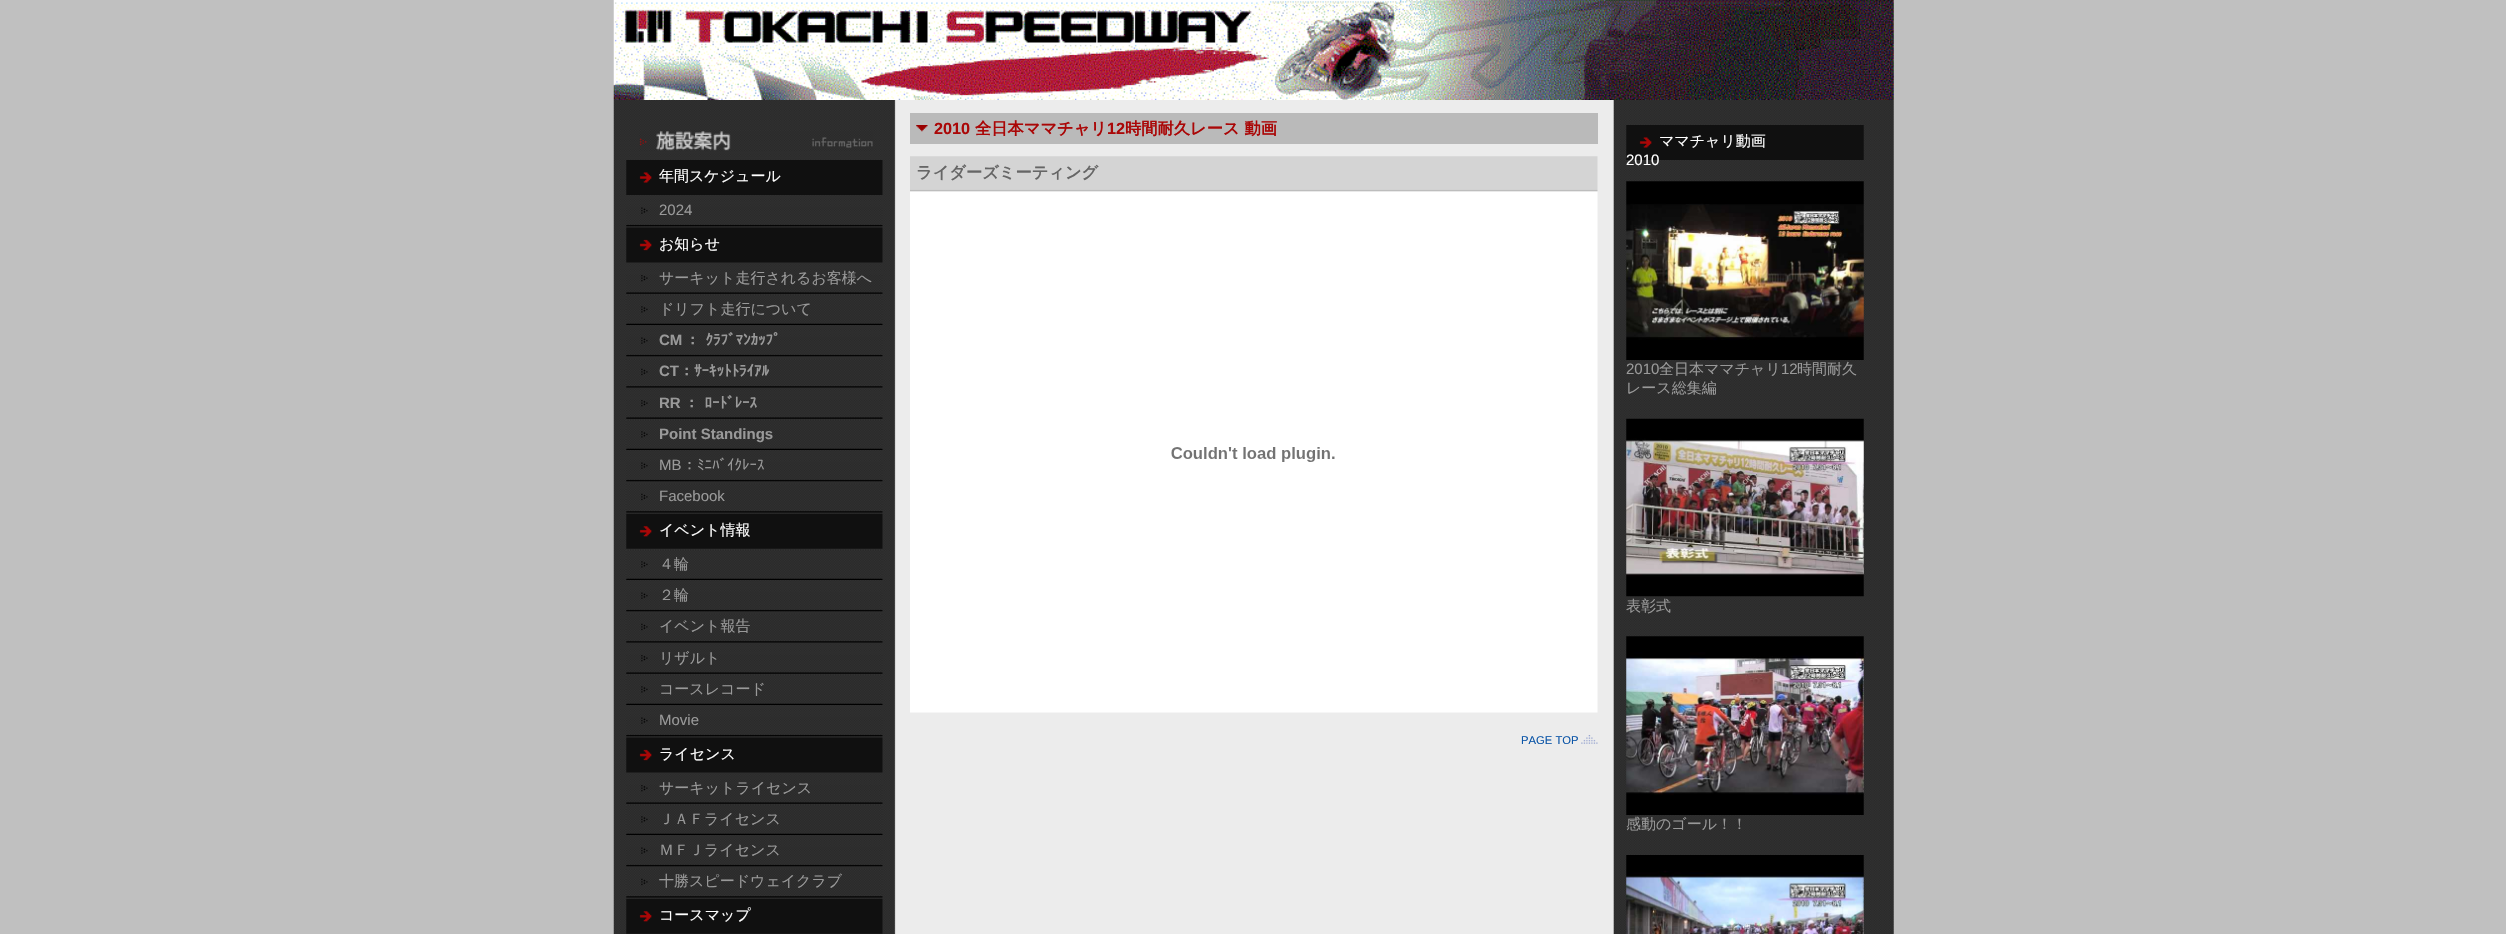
void draw(SkCanvas* canvas) {
    SkPaint paint;
    paint.setAntiAlias(true);
    auto face = [&](const char* family, int weight, float size, bool italic = false) {
        SkFontStyle style(weight, SkFontStyle::kNormal_Width,
            italic ? SkFontStyle::kItalic_Slant : SkFontStyle::kUpright_Slant);
        SkFont result(fontMgr->matchFamilyStyle(family, style), size);
        result.setSubpixel(true);
        return result;
    };
    auto write = [&](const char* s, float x, float y, const SkFont& font, SkColor color) {
        SkPaint ink(SkColor4f::FromColor(color));
        ink.setAntiAlias(true);
        canvas->drawString(s, x, y, font, ink);
    };
    auto writeSpaced = [&](const char* s, float x, float y, const SkFont& font, const SkPaint& ink, float letter, float word) {
        std::vector<SkGlyphID> glyphs(font.countText(s, strlen(s), SkTextEncoding::kUTF8));
        std::vector<float> xs(glyphs.size());
        font.textToGlyphs(s, strlen(s), SkTextEncoding::kUTF8, glyphs);
        font.getXPos(glyphs, xs, x);
        float extra = 0;
        for (size_t i = 0; i < glyphs.size(); i++) {
            xs[i] += extra;
            extra += letter + word * (glyphs[i] == font.unicharToGlyph(' '));
        }
        canvas->drawTextBlob(SkTextBlob::MakeFromPosHGlyphs(glyphs, xs, y, font), 0, 0, ink);
    };
    auto block = [&](float x, float y, float w, float h, SkColor color) {
        SkPaint ink(SkColor4f::FromColor(color));
        ink.setAntiAlias(true);
        canvas->drawRect(SkRect::MakeXYWH(x, y, w, h), ink);
    };
    auto paste = [&](const char* path, float x, float y, float w, float h) {
        auto image = SkImages::DeferredFromEncodedData(SkData::MakeFromFileName(path));
        canvas->drawImageRect(image, SkRect::MakeXYWH(x, y, w, h), SkSamplingOptions());
    };
    canvas->clear(SkColorSetRGB(192, 192, 192));
    paste("pic1.png", 613, 0, 1281, 100);
    paste("pic2.png", 613, 100, 1281, 834);
    block(910, 113, 688, 31, SkColorSetRGB(186, 186, 186));
    paste("pic3.png", 916, 125, 12, 7);
    auto kFont1 = face("Liberation Sans", 700, 16.25f);
    write("2010", 934, 134, kFont1, SkColorSetRGB(170, 7, 7));
    auto kFont2 = face("WenQuanYi Zen Hei", 700, 16.25f);
    write("全日本ママチャリ", 975, 134, kFont2, SkColorSetRGB(170, 7, 7));
    write("12", 1107, 134, kFont1, SkColorSetRGB(170, 7, 7));
    write("時間耐久レース 動画", 1125, 134, kFont2, SkColorSetRGB(170, 7, 7));
    paste("pic4.png", 910, 156, 688, 557);
    write("ライダーズミーティング", 916, 178, kFont2, SkColorSetRGB(102, 102, 102));
    paste("pic5.png", 1171, 447, 164, 15);
    paste("pic6.png", 1581, 735, 17, 9);
    auto kFont3 = face("Liberation Sans", 400, 11.25f);
    write("PAGE TOP", 1521, 744, kFont3, SkColorSetRGB(10, 84, 167));
    paste("pic7.png", 1626, 125, 238, 35);
    auto kFont4 = face("WenQuanYi Zen Hei", 500, 15);
    write("ママチャリ動画", 1659, 146, kFont4, SK_ColorWHITE);
    auto kFont5 = face("Liberation Sans", 400, 15);
    write("2010", 1626, 165, kFont5, SK_ColorWHITE);
    paste("pic8.png", 639, 131, 234, 20);
    paste("pic9.png", 626, 160, 257, 35);
    write("年間スケジュール", 659, 181, kFont4, SK_ColorWHITE);
    paste("pic10.png", 626, 207, 257, 20);
    write("2024", 659, 215, kFont5, SkColorSetRGB(153, 153, 153));
    paste("pic11.png", 626, 227, 257, 36);
    write("お知らせ", 659, 249, kFont4, SK_ColorWHITE);
    paste("pic12.png", 626, 275, 257, 19);
    write("サーキット走行されるお客様へ", 659, 283, kFont4, SkColorSetRGB(153, 153, 153));
    paste("pic13.png", 626, 295, 257, 30);
    write("ドリフト走行について", 659, 314, kFont4, SkColorSetRGB(153, 153, 153));
    paste("pic10.png", 626, 337, 257, 20);
    auto kFont6 = face("Liberation Sans", 700, 15);
    write("CM", 659, 345, kFont6, SkColorSetRGB(153, 153, 153));
    auto kFont7 = face("IPAGothic", 700, 15);
    paint.setColor(SkColorSetRGB(153, 153, 153));
    writeSpaced("： ｸﾗﾌﾞﾏﾝｶｯﾌﾟ", 685, 345, kFont7, paint, 0, -2);
    paste("pic14.png", 626, 359, 257, 29);
    write("CT", 659, 376, kFont6, SkColorSetRGB(153, 153, 153));
    write("：ｻｰｷｯﾄﾄﾗｲｱﾙ", 679, 376, kFont7, SkColorSetRGB(153, 153, 153));
    paste("pic12.png", 626, 400, 257, 19);
    write("RR", 659, 408, kFont6, SkColorSetRGB(153, 153, 153));
    writeSpaced("： ﾛｰﾄﾞﾚｰｽ", 684, 408, kFont7, paint, 0, -2);
    paste("pic13.png", 626, 420, 257, 30);
    write("Point Standings", 659, 439, kFont6, SkColorSetRGB(153, 153, 153));
    paste("pic10.png", 626, 462, 257, 20);
    write("MB", 659, 470, kFont5, SkColorSetRGB(153, 153, 153));
    auto kFont8 = face("IPAGothic", 400, 15);
    write("：ﾐﾆﾊﾞｲｸﾚｰｽ", 682, 470, kFont8, SkColorSetRGB(153, 153, 153));
    paste("pic14.png", 626, 484, 257, 29);
    write("Facebook", 659, 501, kFont5, SkColorSetRGB(153, 153, 153));
    paste("pic15.png", 626, 513, 257, 36);
    write("イベント情報", 659, 535, kFont4, SK_ColorWHITE);
    paste("pic13.png", 626, 550, 257, 30);
    write("４輪", 659, 569, kFont4, SkColorSetRGB(153, 153, 153));
    paste("pic16.png", 626, 592, 257, 20);
    write("２輪", 659, 600, kFont4, SkColorSetRGB(153, 153, 153));
    paste("pic14.png", 626, 614, 257, 29);
    write("イベント報告", 659, 631, kFont4, SkColorSetRGB(153, 153, 153));
    paste("pic12.png", 626, 655, 257, 19);
    write("リザルト", 659, 663, kFont4, SkColorSetRGB(153, 153, 153));
    paste("pic13.png", 626, 675, 257, 30);
    write("コースレコード", 659, 694, kFont4, SkColorSetRGB(153, 153, 153));
    paste("pic10.png", 626, 717, 257, 20);
    write("Movie", 659, 725, kFont5, SkColorSetRGB(153, 153, 153));
    paste("pic17.png", 626, 737, 257, 36);
    write("ライセンス", 659, 759, kFont4, SK_ColorWHITE);
    paste("pic18.png", 626, 785, 257, 19);
    write("サーキットライセンス", 659, 793, kFont4, SkColorSetRGB(153, 153, 153));
    paste("pic13.png", 626, 805, 257, 30);
    write("ＪＡＦライセンス", 659, 824, kFont4, SkColorSetRGB(153, 153, 153));
    paste("pic10.png", 626, 847, 257, 20);
    write("ＭＦＪライセンス", 659, 855, kFont4, SkColorSetRGB(153, 153, 153));
    paste("pic19.png", 626, 869, 257, 29);
    write("十勝スピードウェイクラブ", 659, 886, kFont4, SkColorSetRGB(153, 153, 153));
    paste("pic15.png", 626, 898, 257, 36);
    write("コースマップ", 659, 920, kFont4, SK_ColorWHITE);
    paste("pic20.png", 1626, 181, 238, 179);
    write("2010", 1626, 374, kFont5, SkColorSetRGB(153, 153, 153));
    write("全日本ママチャリ", 1659, 374, kFont4, SkColorSetRGB(153, 153, 153));
    write("12", 1781, 374, kFont5, SkColorSetRGB(153, 153, 153));
    write("時間耐久", 1797, 374, kFont4, SkColorSetRGB(153, 153, 153));
    write("レース総集編", 1626, 393, kFont4, SkColorSetRGB(153, 153, 153));
    paste("pic21.png", 1626, 418, 238, 179);
    write("表彰式", 1626, 611, kFont4, SkColorSetRGB(153, 153, 153));
    paste("pic22.png", 1626, 636, 238, 179);
    write("感動のゴール！！", 1626, 829, kFont4, SkColorSetRGB(153, 153, 153));
    paste("pic23.png", 1626, 855, 238, 79);
}
